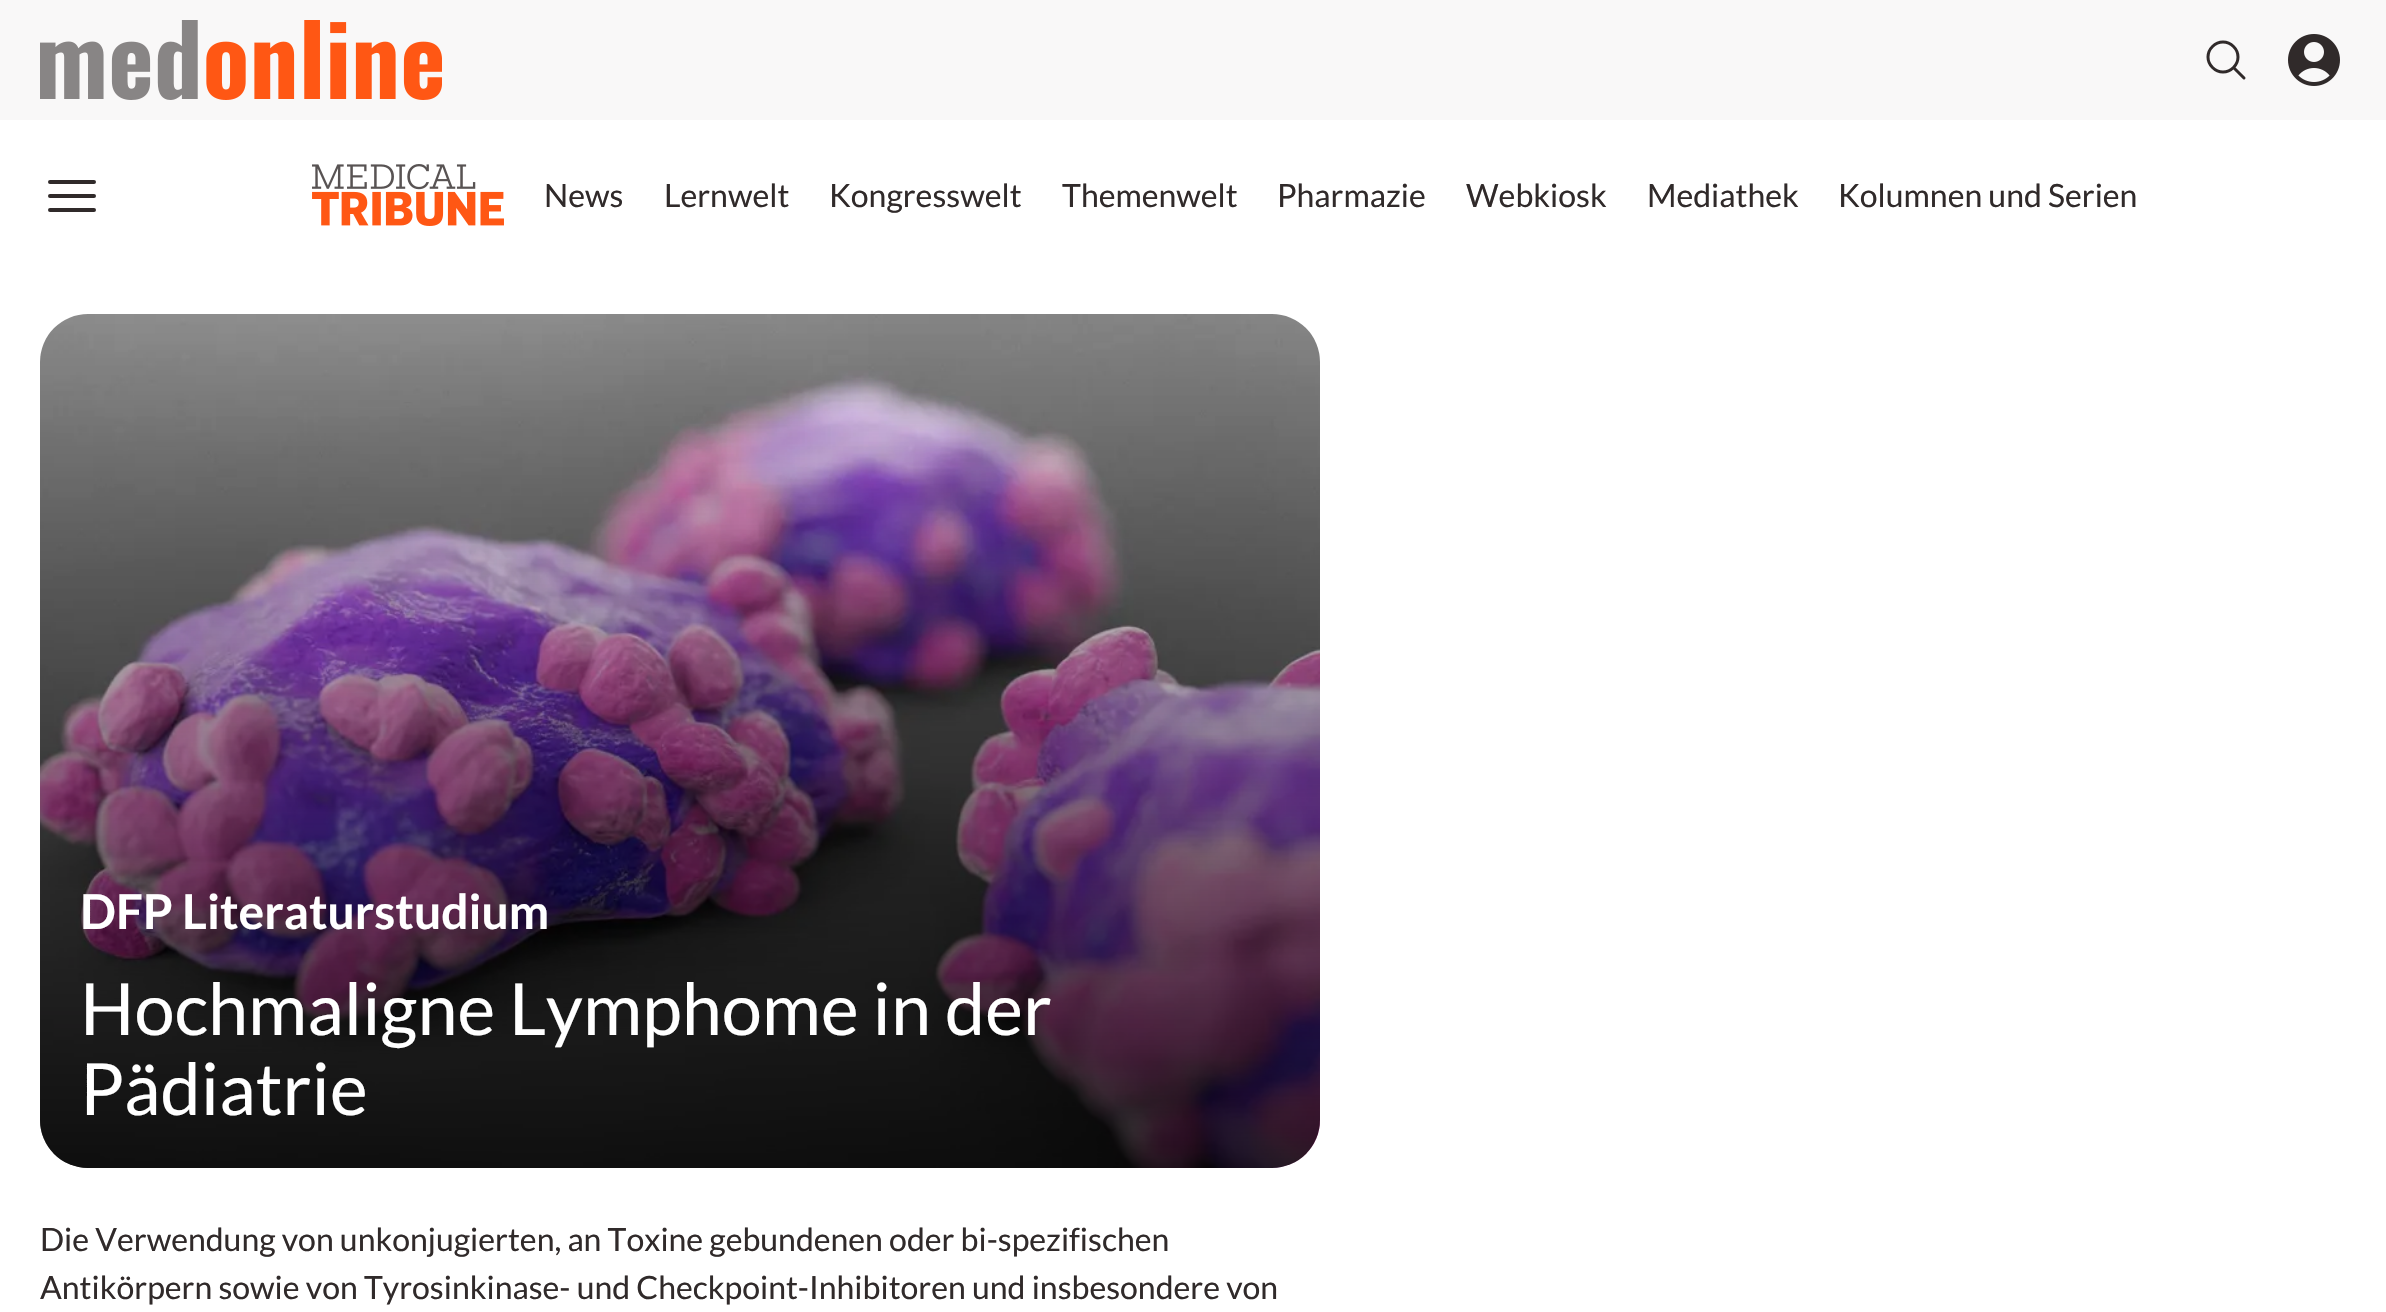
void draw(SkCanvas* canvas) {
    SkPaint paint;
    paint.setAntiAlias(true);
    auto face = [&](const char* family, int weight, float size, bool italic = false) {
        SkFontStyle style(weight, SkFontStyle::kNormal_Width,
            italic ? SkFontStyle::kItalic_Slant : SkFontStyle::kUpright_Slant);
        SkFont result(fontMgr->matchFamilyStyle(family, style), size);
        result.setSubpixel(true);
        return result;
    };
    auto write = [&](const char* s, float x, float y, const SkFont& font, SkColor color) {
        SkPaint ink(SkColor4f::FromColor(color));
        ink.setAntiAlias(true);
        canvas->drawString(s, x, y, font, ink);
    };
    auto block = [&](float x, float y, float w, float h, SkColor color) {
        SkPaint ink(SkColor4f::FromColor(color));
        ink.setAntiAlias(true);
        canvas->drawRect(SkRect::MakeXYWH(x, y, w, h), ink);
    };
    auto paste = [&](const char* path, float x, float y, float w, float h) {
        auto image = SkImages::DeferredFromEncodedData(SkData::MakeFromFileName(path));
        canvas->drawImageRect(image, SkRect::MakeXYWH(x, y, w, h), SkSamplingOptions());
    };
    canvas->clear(SK_ColorWHITE);
    block(0, 0, 2386, 120, SkColorSetRGB(249, 248, 248));
    paste("pic1.png", 40, 20, 402, 80);
    paint.setStyle(SkPaint::kStroke_Style);
    paint.setStrokeWidth(3);
    paint.setStrokeCap(SkPaint::kRound_Cap);
    paint.setStrokeJoin(SkPaint::kRound_Join);
    paint.setColor(SkColorSetRGB(48, 42, 42));
    canvas->drawPath(SkPathBuilder().moveTo(2244, 78).lineTo(2233.5f, 67.5f).moveTo(2233.5f, 67.5f).cubicTo(2239.5f, 61.5f, 2239.5f, 52.5f, 2233.5f, 46.5f).cubicTo(2227.5f, 40.5f, 2218.5f, 40.5f, 2212.5f, 46.5f).cubicTo(2206.5f, 52.5f, 2206.5f, 61.5f, 2212.5f, 67.5f).cubicTo(2218.5f, 73.5f, 2227.5f, 73.5f, 2233.5f, 67.5f).close().detach(), paint);
    paste("pic2.png", 2288, 34, 52, 52);
    paint.setStrokeWidth(4);
    canvas->drawPath(SkPathBuilder().moveTo(50, 182).lineTo(94, 182).moveTo(50, 196).lineTo(94, 196).moveTo(50, 210).lineTo(94, 210).detach(), paint);
    paste("pic3.png", 312, 164, 192, 62);
    auto kFont1 = face("Lato", 400, 32);
    write("News", 544, 207, kFont1, SkColorSetRGB(48, 42, 42));
    write("Lernwelt", 664, 207, kFont1, SkColorSetRGB(48, 42, 42));
    write("Kongresswelt", 829, 207, kFont1, SkColorSetRGB(48, 42, 42));
    write("Themenwelt", 1062, 207, kFont1, SkColorSetRGB(48, 42, 42));
    write("Pharmazie", 1277, 207, kFont1, SkColorSetRGB(48, 42, 42));
    write("Webkiosk", 1466, 207, kFont1, SkColorSetRGB(48, 42, 42));
    write("Mediathek", 1647, 207, kFont1, SkColorSetRGB(48, 42, 42));
    write("Kolumnen und Serien", 1838, 207, kFont1, SkColorSetRGB(48, 42, 42));
    paste("pic4.png", 40, 314, 1280, 854);
    paint.setStyle(SkPaint::kFill_Style);
    {
        const SkColor colors[] = {SkColorSetARGB(204, 0, 0, 0), SkColorSetARGB(0, 0, 0, 0)};
        const float stops[] = {0, 1};
        const SkPoint ends[] = {{680, 1168}, {680, 314}};
        paint.setShader(SkGradientShader::MakeLinear(ends, colors, stops, 2, SkTileMode::kClamp));
        paint.setAlpha(255);
    }
    canvas->drawRoundRect(SkRect::MakeXYWH(40, 314, 1280, 854), 48, 48, paint);
    auto kFont2 = face("Lato", 700, 48);
    write("DFP Literaturstudium", 80, 929, kFont2, SK_ColorWHITE);
    auto kFont3 = face("Lato", 400, 72);
    write("Hochmaligne Lymphome in der", 80, 1035, kFont3, SK_ColorWHITE);
    write("Pädiatrie", 80, 1115, kFont3, SK_ColorWHITE);
    write("Die Verwendung von unkonjugierten, an Toxine gebundenen oder bi-spezifischen", 40, 1251, kFont1, SkColorSetRGB(48, 42, 42));
    write("Antikörpern sowie von Tyrosinkinase- und Checkpoint-Inhibitoren und insbesondere von", 40, 1299, kFont1, SkColorSetRGB(48, 42, 42));
}
